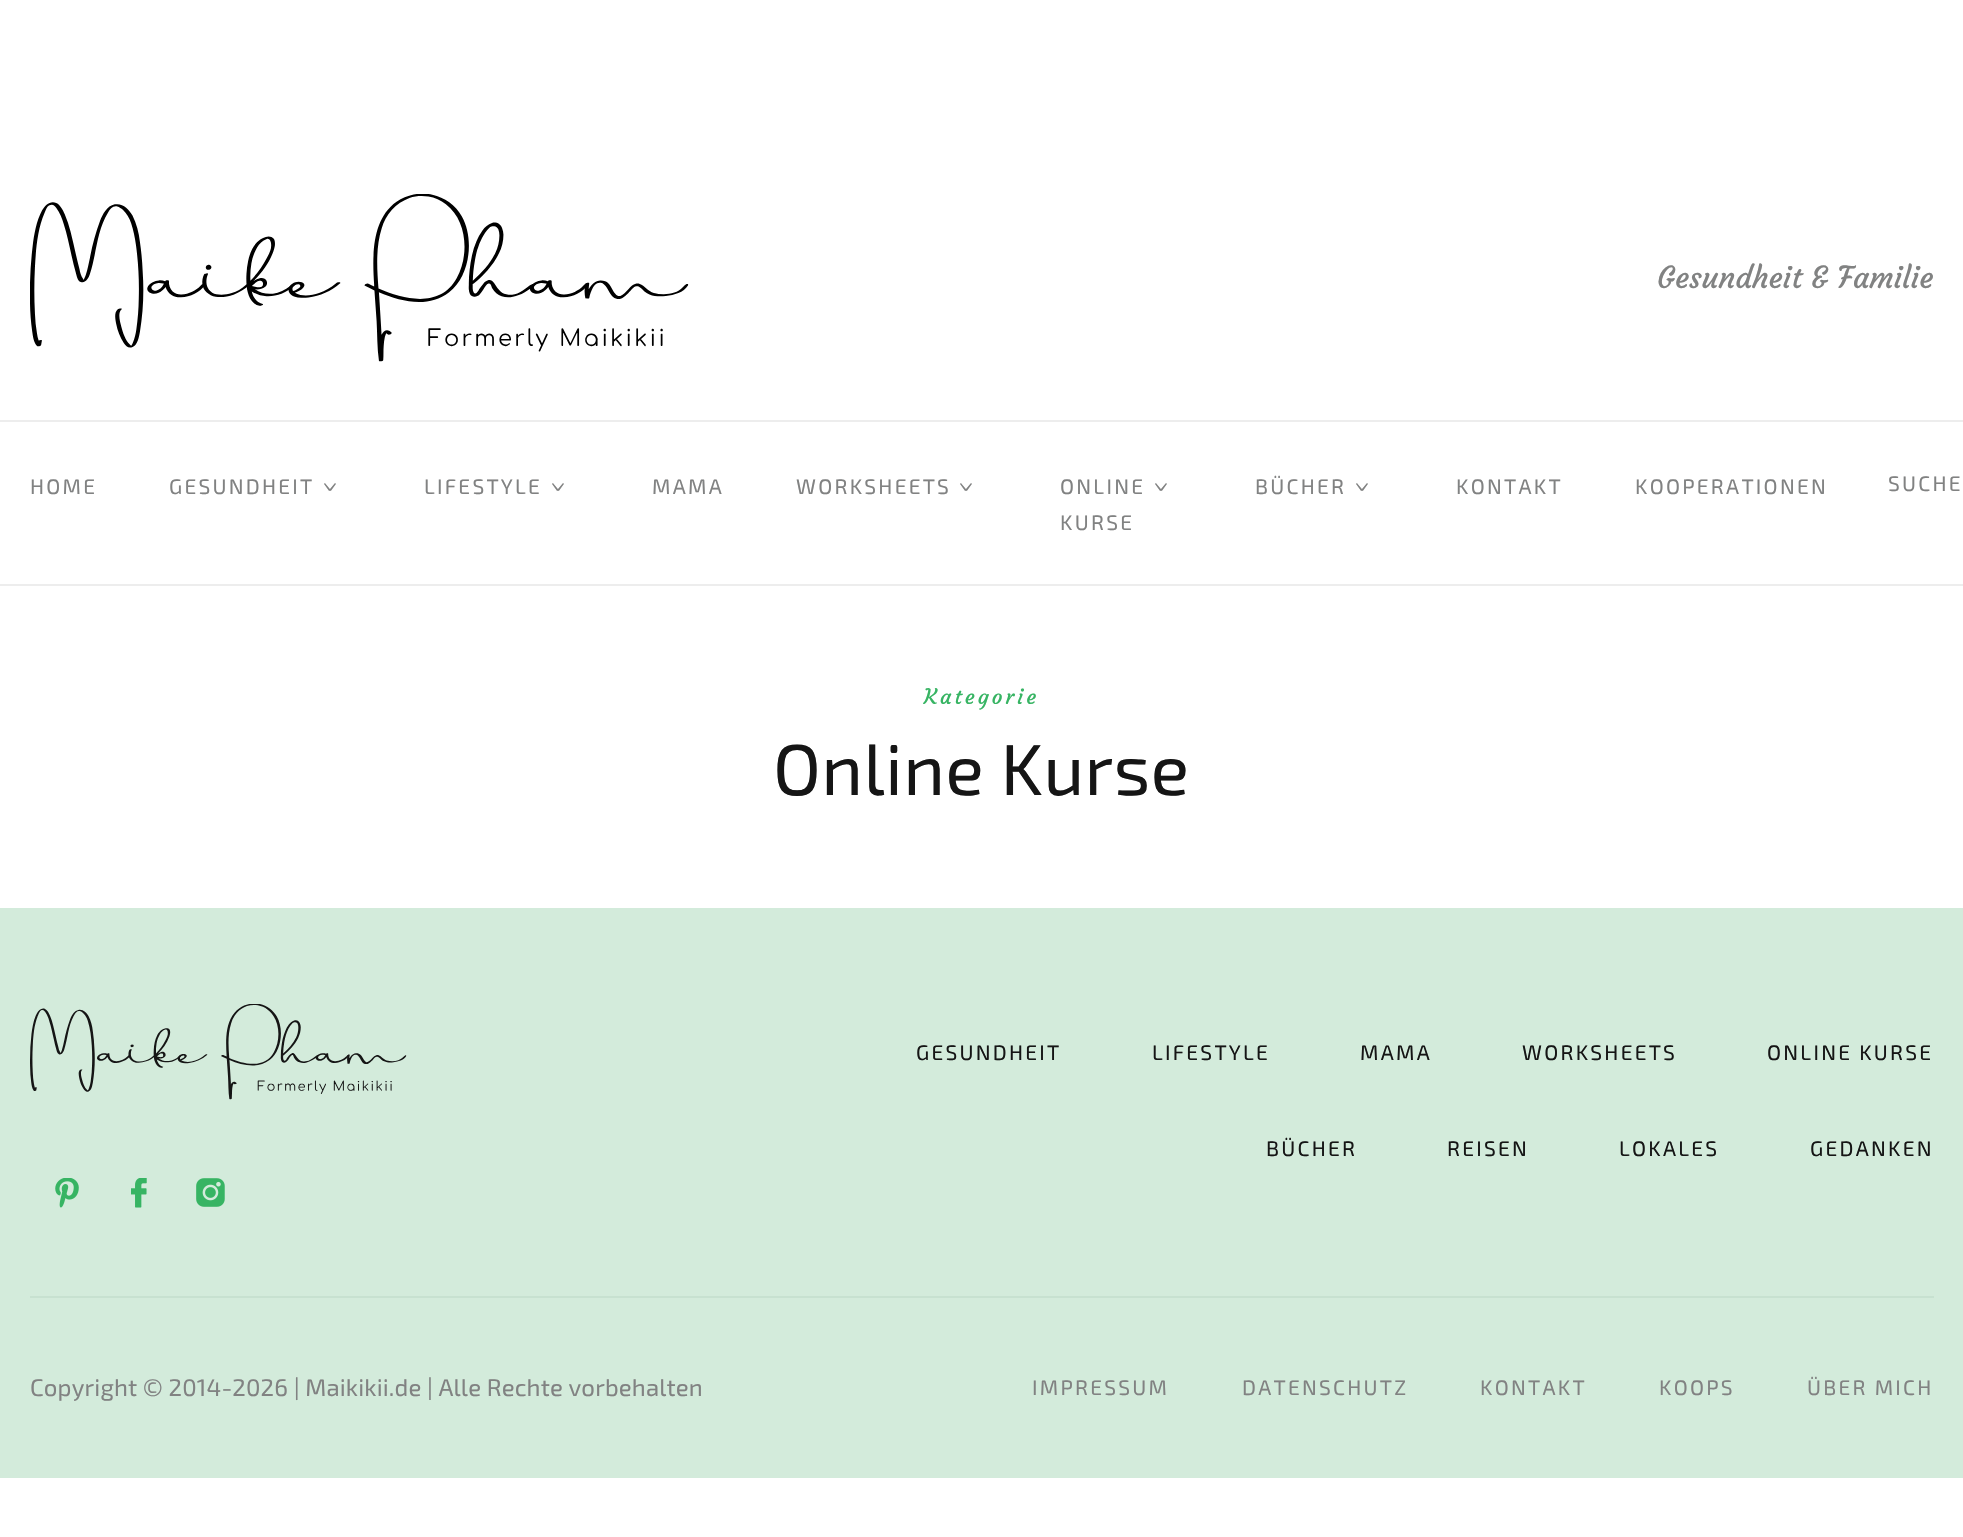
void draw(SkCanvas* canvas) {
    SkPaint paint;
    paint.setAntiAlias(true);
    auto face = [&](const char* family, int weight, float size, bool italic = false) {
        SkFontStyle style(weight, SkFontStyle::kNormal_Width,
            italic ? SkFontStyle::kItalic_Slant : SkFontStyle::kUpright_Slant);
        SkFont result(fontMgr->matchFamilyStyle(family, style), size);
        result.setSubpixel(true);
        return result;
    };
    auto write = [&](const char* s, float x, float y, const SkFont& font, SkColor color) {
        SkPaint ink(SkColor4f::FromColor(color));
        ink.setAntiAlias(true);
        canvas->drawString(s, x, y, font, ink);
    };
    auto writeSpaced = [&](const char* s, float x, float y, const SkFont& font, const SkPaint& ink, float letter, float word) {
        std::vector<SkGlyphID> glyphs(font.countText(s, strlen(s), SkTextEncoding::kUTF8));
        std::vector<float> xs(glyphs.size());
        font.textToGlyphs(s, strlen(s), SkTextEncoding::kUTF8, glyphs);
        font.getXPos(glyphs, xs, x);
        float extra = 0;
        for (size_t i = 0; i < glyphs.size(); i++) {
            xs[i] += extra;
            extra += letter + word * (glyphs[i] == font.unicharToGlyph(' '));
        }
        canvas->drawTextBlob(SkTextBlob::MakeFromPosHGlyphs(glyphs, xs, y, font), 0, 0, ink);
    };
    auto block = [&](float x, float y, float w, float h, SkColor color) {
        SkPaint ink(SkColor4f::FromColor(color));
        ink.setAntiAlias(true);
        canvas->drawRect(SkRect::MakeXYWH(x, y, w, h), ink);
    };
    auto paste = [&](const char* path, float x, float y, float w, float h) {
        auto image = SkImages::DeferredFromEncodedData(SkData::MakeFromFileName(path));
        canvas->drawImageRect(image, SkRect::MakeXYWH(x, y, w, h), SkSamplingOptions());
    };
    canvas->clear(SK_ColorWHITE);
    paste("pic1.png", 30, 194, 659, 168);
    auto kFont1 = face("Courgette", 400, 30);
    write("Gesundheit & Familie", 1657, 288, kFont1, SkColorSetRGB(129, 130, 130));
    block(0, 420, 1963, 2, SkColorSetRGB(237, 237, 237));
    block(0, 584, 1963, 2, SkColorSetRGB(237, 237, 237));
    auto kFont2 = face("Exo 2", 400, 21);
    paint.setColor(SkColorSetRGB(129, 130, 130));
    writeSpaced("HOME", 30, 494, kFont2, paint, 2.25f, 0);
    writeSpaced("GESUNDHEIT", 169, 494, kFont2, paint, 2.25f, 0);
    auto kFont3 = face("Exo 2", 400, 33);
    canvas->save();
    canvas->rotate(180, 337, 471);
    write("^", 337, 471, kFont3, SkColorSetRGB(129, 130, 130));
    canvas->restore();
    writeSpaced("LIFESTYLE", 424, 494, kFont2, paint, 2.25f, 0);
    canvas->save();
    canvas->rotate(180, 565, 471);
    write("^", 565, 471, kFont3, SkColorSetRGB(129, 130, 130));
    canvas->restore();
    writeSpaced("MAMA", 652, 494, kFont2, paint, 2.25f, 0);
    writeSpaced("WORKSHEETS", 796, 494, kFont2, paint, 2.25f, 0);
    canvas->save();
    canvas->rotate(180, 973, 471);
    write("^", 973, 471, kFont3, SkColorSetRGB(129, 130, 130));
    canvas->restore();
    writeSpaced("ONLINE", 1060, 494, kFont2, paint, 2.25f, 0);
    canvas->save();
    canvas->rotate(180, 1168, 471);
    write("^", 1168, 471, kFont3, SkColorSetRGB(129, 130, 130));
    canvas->restore();
    writeSpaced("KURSE", 1060, 530, kFont2, paint, 2.25f, 0);
    writeSpaced("BÜCHER", 1255, 494, kFont2, paint, 2.25f, 0);
    canvas->save();
    canvas->rotate(180, 1369, 471);
    write("^", 1369, 471, kFont3, SkColorSetRGB(129, 130, 130));
    canvas->restore();
    writeSpaced("KONTAKT", 1456, 494, kFont2, paint, 2.25f, 0);
    writeSpaced("KOOPERATIONEN", 1635, 494, kFont2, paint, 2.25f, 0);
    writeSpaced("SUCHE", 1888, 491, kFont2, paint, 2.25f, 0);
    auto kFont4 = face("Courgette", 400, 21);
    paint.setColor(SkColorSetRGB(55, 180, 99));
    writeSpaced("Kategorie", 924, 704, kFont4, paint, 3, 0);
    auto kFont5 = face("Exo 2", 400, 72);
    paint.setColor(SkColorSetRGB(21, 21, 21));
    writeSpaced("Online Kurse", 773, 795, kFont5, paint, 0.25f, 0);
    block(0, 908, 1963, 570, SkColorSetRGB(211, 235, 219));
    block(30, 1296, 1904, 2, SkColorSetRGB(199, 225, 208));
    paste("pic2.png", 30, 1004, 377, 96);
    paste("pic3.png", 55, 1178, 24, 30);
    paste("pic4.png", 131, 1178, 16, 30);
    paste("pic5.png", 196, 1178, 29, 29);
    writeSpaced("GESUNDHEIT", 916, 1060, kFont2, paint, 2.25f, 0);
    writeSpaced("LIFESTYLE", 1152, 1060, kFont2, paint, 2.25f, 0);
    writeSpaced("MAMA", 1360, 1060, kFont2, paint, 2.25f, 0);
    writeSpaced("WORKSHEETS", 1522, 1060, kFont2, paint, 2.25f, 0);
    writeSpaced("ONLINE KURSE", 1767, 1060, kFont2, paint, 2.25f, 0);
    writeSpaced("BÜCHER", 1266, 1156, kFont2, paint, 2.25f, 0);
    writeSpaced("REISEN", 1447, 1156, kFont2, paint, 2.25f, 0);
    writeSpaced("LOKALES", 1619, 1156, kFont2, paint, 2.25f, 0);
    writeSpaced("GEDANKEN", 1810, 1156, kFont2, paint, 2.25f, 0);
    auto kFont6 = face("Exo 2", 400, 24);
    paint.setColor(SkColorSetRGB(129, 130, 130));
    writeSpaced("Copyright © 2014-2026 | Maikikii.de | Alle Rechte vorbehalten", 30, 1396, kFont6, paint, 0.15f, 0);
    writeSpaced("IMPRESSUM", 1032, 1395, kFont2, paint, 2.25f, 0);
    writeSpaced("DATENSCHUTZ", 1242, 1395, kFont2, paint, 2.25f, 0);
    writeSpaced("KONTAKT", 1480, 1395, kFont2, paint, 2.25f, 0);
    writeSpaced("KOOPS", 1659, 1395, kFont2, paint, 2.25f, 0);
    writeSpaced("ÜBER MICH", 1807, 1395, kFont2, paint, 2.25f, 0);
}
